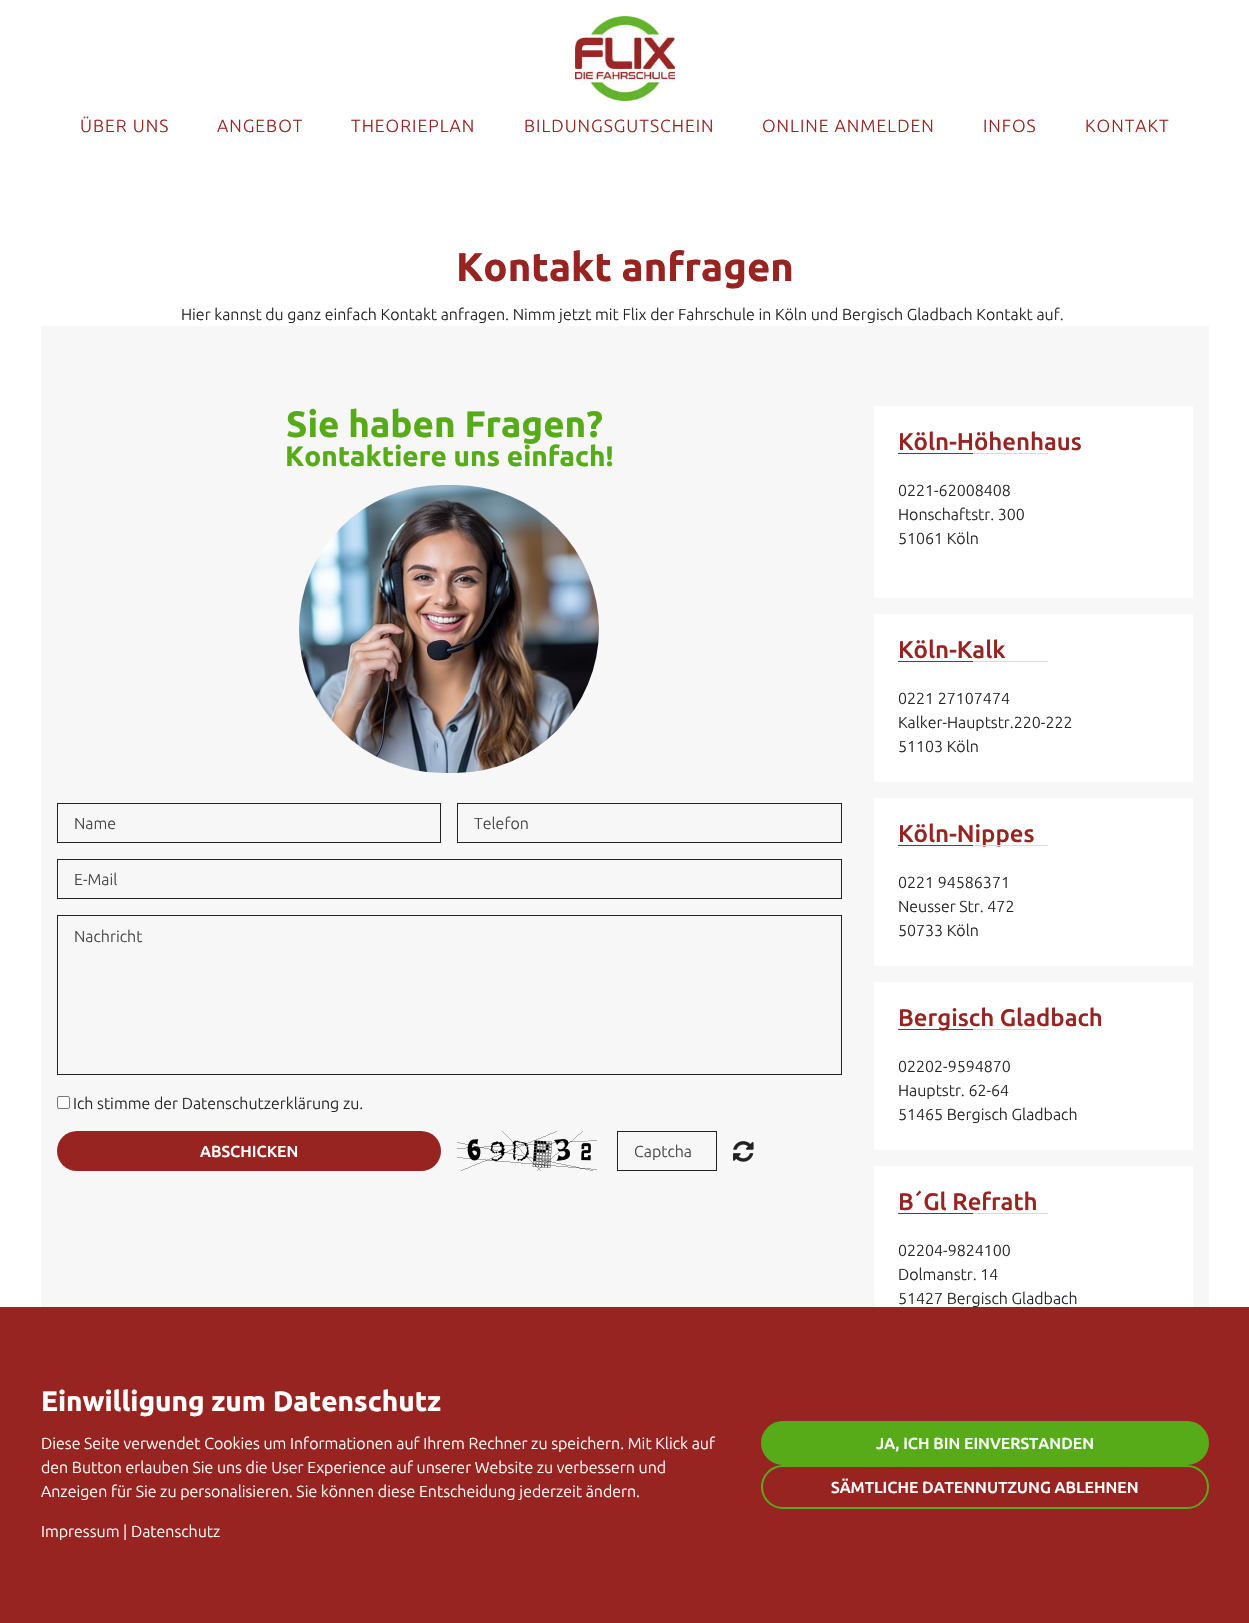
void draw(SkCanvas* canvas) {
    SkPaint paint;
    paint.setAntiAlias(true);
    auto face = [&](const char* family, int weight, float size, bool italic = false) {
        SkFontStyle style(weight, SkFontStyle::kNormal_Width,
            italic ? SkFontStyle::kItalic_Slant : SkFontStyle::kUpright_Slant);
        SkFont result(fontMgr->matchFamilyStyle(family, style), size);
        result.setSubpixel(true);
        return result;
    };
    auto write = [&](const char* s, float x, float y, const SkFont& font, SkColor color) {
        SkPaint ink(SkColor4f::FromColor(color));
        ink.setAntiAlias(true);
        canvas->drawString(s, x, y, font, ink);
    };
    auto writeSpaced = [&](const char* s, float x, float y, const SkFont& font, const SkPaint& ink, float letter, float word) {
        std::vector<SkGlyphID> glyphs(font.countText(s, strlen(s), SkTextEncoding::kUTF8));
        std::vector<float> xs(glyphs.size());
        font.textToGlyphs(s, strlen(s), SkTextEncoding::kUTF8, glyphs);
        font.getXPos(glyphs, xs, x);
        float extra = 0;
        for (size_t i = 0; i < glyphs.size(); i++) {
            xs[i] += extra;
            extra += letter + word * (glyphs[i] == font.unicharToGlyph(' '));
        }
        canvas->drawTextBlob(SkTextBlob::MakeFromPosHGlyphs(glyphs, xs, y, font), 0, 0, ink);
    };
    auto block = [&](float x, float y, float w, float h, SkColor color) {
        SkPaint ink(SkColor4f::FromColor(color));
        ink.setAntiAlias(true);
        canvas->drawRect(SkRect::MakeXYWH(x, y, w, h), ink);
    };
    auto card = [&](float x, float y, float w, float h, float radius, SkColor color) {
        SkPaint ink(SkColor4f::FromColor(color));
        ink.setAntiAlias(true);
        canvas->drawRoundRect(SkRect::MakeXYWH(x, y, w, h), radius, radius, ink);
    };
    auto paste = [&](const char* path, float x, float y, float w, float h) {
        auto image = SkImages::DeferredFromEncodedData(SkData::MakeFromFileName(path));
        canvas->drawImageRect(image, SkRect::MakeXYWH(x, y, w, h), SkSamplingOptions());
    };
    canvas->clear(SK_ColorWHITE);
    paste("pic1.png", 575, 16, 100, 85);
    auto kFont1 = face("Ubuntu", 300, 17.6f);
    paint.setColor(SkColorSetRGB(151, 36, 32));
    writeSpaced("ÜBER UNS", 80, 132, kFont1, paint, 1, 0);
    writeSpaced("ANGEBOT", 217, 132, kFont1, paint, 1, 0);
    writeSpaced("THEORIEPLAN", 351, 132, kFont1, paint, 1, 0);
    writeSpaced("BILDUNGSGUTSCHEIN", 524, 132, kFont1, paint, 1, 0);
    writeSpaced("ONLINE ANMELDEN", 762, 132, kFont1, paint, 1, 0);
    writeSpaced("INFOS", 983, 132, kFont1, paint, 1, 0);
    writeSpaced("KONTAKT", 1085, 132, kFont1, paint, 1, 0);
    auto kFont2 = face("Ubuntu", 700, 40);
    write("Kontakt anfragen", 456, 281, kFont2, SkColorSetRGB(151, 36, 32));
    auto kFont3 = face("Ubuntu", 300, 16);
    write("Hier kannst du ganz einfach Kontakt anfragen. Nimm jetzt mit Flix der Fahrschule in Köln und Bergisch Gladbach Kontakt auf.", 181, 320, kFont3, SkColorSetRGB(34, 34, 34));
    block(41, 326, 1168, 981, SkColorSetRGB(247, 247, 247));
    auto kFont4 = face("Ubuntu", 700, 36.75f);
    write("Sie haben Fragen?", 286, 437, kFont4, SkColorSetRGB(87, 171, 24));
    auto kFont5 = face("Ubuntu", 700, 28);
    write("Kontaktiere uns einfach!", 285, 466, kFont5, SkColorSetRGB(87, 171, 24));
    paste("pic2.png", 299, 485, 300, 288);
    paint.setStyle(SkPaint::kStroke_Style);
    paint.setStrokeWidth(1);
    paint.setColor(SkColorSetRGB(34, 34, 34));
    canvas->drawRect(SkRect::MakeXYWH(57.5f, 803.5f, 383, 39), paint);
    write("Name", 74, 829, kFont3, SkColorSetRGB(66, 66, 66));
    canvas->drawRect(SkRect::MakeXYWH(457.5f, 803.5f, 384, 39), paint);
    write("Telefon", 474, 829, kFont3, SkColorSetRGB(66, 66, 66));
    canvas->drawRect(SkRect::MakeXYWH(57.5f, 859.5f, 784, 39), paint);
    write("E-Mail", 74, 885, kFont3, SkColorSetRGB(66, 66, 66));
    canvas->drawRect(SkRect::MakeXYWH(57.5f, 915.5f, 784, 159), paint);
    write("Nachricht", 74, 942, kFont3, SkColorSetRGB(66, 66, 66));
    paint.setStyle(SkPaint::kFill_Style);
    paint.setColor(SK_ColorWHITE);
    canvas->drawRoundRect(SkRect::MakeXYWH(57.5f, 1096.5f, 12, 12), 1.5f, 1.5f, paint);
    paint.setStyle(SkPaint::kStroke_Style);
    paint.setColor(SkColorSetRGB(118, 118, 118));
    canvas->drawRoundRect(SkRect::MakeXYWH(57.5f, 1096.5f, 12, 12), 1.5f, 1.5f, paint);
    write("Ich stimme der Datenschutzerklärung zu.", 73, 1109, kFont3, SkColorSetRGB(34, 34, 34));
    card(57, 1131, 384, 40, 20, SkColorSetRGB(151, 36, 32));
    auto kFont6 = face("Ubuntu", 500, 16);
    write("ABSCHICKEN", 200, 1157, kFont6, SK_ColorWHITE);
    paste("pic3.png", 457, 1131, 140, 40);
    paint.setColor(SkColorSetRGB(34, 34, 34));
    canvas->drawRect(SkRect::MakeXYWH(617.5f, 1131.5f, 99, 39), paint);
    write("Captcha", 634, 1157, kFont3, SkColorSetRGB(66, 66, 66));
    paste("pic4.png", 733, 1141, 21, 21);
    block(874, 406, 319, 192, SK_ColorWHITE);
    auto kFont7 = face("Ubuntu", 500, 24);
    write("Köln-Höhenhaus", 898, 450, kFont7, SkColorSetRGB(151, 36, 32));
    block(898, 453, 75, 1, SkColorSetRGB(151, 36, 32));
    block(973, 453, 75, 1, SkColorSetRGB(217, 217, 217));
    write("0221-62008408", 898, 496, kFont3, SkColorSetRGB(34, 34, 34));
    write("Honschaftstr. 300", 898, 520, kFont3, SkColorSetRGB(34, 34, 34));
    write("51061 Köln", 898, 544, kFont3, SkColorSetRGB(34, 34, 34));
    block(874, 614, 319, 168, SK_ColorWHITE);
    write("Köln-Kalk", 898, 658, kFont7, SkColorSetRGB(151, 36, 32));
    block(898, 661, 75, 1, SkColorSetRGB(151, 36, 32));
    block(973, 661, 75, 1, SkColorSetRGB(217, 217, 217));
    write("0221 27107474", 898, 704, kFont3, SkColorSetRGB(34, 34, 34));
    write("Kalker-Hauptstr.220-222", 898, 728, kFont3, SkColorSetRGB(34, 34, 34));
    write("51103 Köln", 898, 752, kFont3, SkColorSetRGB(34, 34, 34));
    block(874, 798, 319, 168, SK_ColorWHITE);
    write("Köln-Nippes", 898, 842, kFont7, SkColorSetRGB(151, 36, 32));
    block(898, 845, 75, 1, SkColorSetRGB(151, 36, 32));
    block(973, 845, 75, 1, SkColorSetRGB(217, 217, 217));
    write("0221 94586371", 898, 888, kFont3, SkColorSetRGB(34, 34, 34));
    write("Neusser Str. 472", 898, 912, kFont3, SkColorSetRGB(34, 34, 34));
    write("50733 Köln", 898, 936, kFont3, SkColorSetRGB(34, 34, 34));
    block(874, 982, 319, 168, SK_ColorWHITE);
    write("Bergisch Gladbach", 898, 1026, kFont7, SkColorSetRGB(151, 36, 32));
    block(898, 1029, 75, 1, SkColorSetRGB(151, 36, 32));
    block(973, 1029, 75, 1, SkColorSetRGB(217, 217, 217));
    write("02202-9594870", 898, 1072, kFont3, SkColorSetRGB(34, 34, 34));
    write("Hauptstr. 62-64", 898, 1096, kFont3, SkColorSetRGB(34, 34, 34));
    write("51465 Bergisch Gladbach", 898, 1120, kFont3, SkColorSetRGB(34, 34, 34));
    block(874, 1166, 319, 141, SK_ColorWHITE);
    write("B´Gl Refrath", 898, 1210, kFont7, SkColorSetRGB(151, 36, 32));
    block(898, 1213, 75, 1, SkColorSetRGB(151, 36, 32));
    block(973, 1213, 75, 1, SkColorSetRGB(217, 217, 217));
    write("02204-9824100", 898, 1256, kFont3, SkColorSetRGB(34, 34, 34));
    write("Dolmanstr. 14", 898, 1280, kFont3, SkColorSetRGB(34, 34, 34));
    write("51427 Bergisch Gladbach", 898, 1304, kFont3, SkColorSetRGB(34, 34, 34));
    block(0, 1307, 1249, 316, SkColorSetRGB(151, 36, 32));
    write("Einwilligung zum Datenschutz", 41, 1411, kFont5, SK_ColorWHITE);
    write("Diese Seite verwendet Cookies um Informationen auf Ihrem Rechner zu speichern. Mit Klick auf", 41, 1449, kFont3, SK_ColorWHITE);
    write("den Button erlauben Sie uns die User Experience auf unserer Website zu verbessern und", 41, 1473, kFont3, SK_ColorWHITE);
    write("Anzeigen für Sie zu personalisieren. Sie können diese Entscheidung jederzeit ändern.", 41, 1497, kFont3, SK_ColorWHITE);
    write("Impressum | Datenschutz", 41, 1537, kFont3, SK_ColorWHITE);
    paint.setStyle(SkPaint::kFill_Style);
    paint.setColor(SkColorSetRGB(87, 171, 24));
    canvas->drawRoundRect(SkRect::MakeXYWH(762, 1422, 446, 42), 21, 21, paint);
    paint.setStyle(SkPaint::kStroke_Style);
    paint.setStrokeWidth(2);
    canvas->drawRoundRect(SkRect::MakeXYWH(762, 1422, 446, 42), 21, 21, paint);
    write("JA, ICH BIN EINVERSTANDEN", 876, 1449, kFont6, SK_ColorWHITE);
    canvas->drawRoundRect(SkRect::MakeXYWH(762, 1466, 446, 42), 21, 21, paint);
    write("SÄMTLICHE DATENNUTZUNG ABLEHNEN", 831, 1493, kFont6, SK_ColorWHITE);
}
